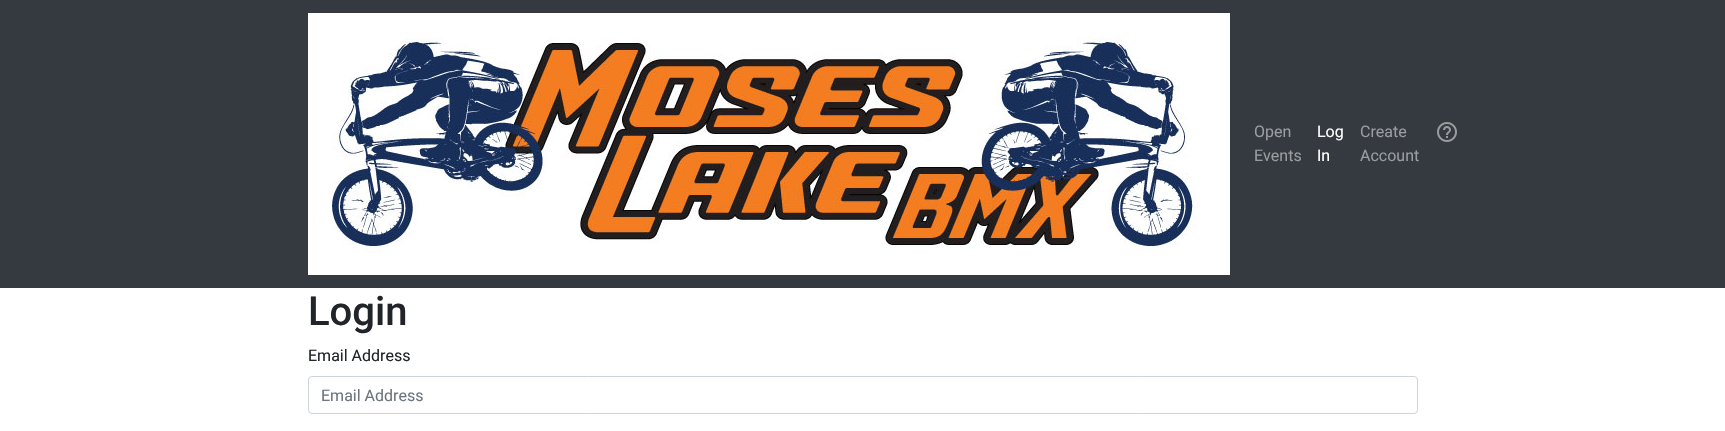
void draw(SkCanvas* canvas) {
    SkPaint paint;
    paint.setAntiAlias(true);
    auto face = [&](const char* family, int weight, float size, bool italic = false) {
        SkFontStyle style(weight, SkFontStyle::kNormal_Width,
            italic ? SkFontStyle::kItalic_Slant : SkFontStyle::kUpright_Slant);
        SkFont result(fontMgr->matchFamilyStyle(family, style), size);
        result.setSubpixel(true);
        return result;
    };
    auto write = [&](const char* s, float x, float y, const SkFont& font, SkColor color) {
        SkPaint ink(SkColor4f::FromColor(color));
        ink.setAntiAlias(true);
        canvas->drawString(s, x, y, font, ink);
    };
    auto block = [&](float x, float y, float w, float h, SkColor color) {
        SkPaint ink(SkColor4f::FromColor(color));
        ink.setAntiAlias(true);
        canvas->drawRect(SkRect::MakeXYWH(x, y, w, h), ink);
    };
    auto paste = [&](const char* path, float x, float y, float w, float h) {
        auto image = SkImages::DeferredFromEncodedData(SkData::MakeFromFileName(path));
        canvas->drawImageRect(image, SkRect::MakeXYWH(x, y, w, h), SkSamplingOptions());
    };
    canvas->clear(SK_ColorWHITE);
    block(0, 0, 1725, 288, SkColorSetRGB(52, 58, 64));
    paste("pic1.png", 308, 13, 922, 262);
    auto kFont1 = face("Roboto", 400, 16);
    write("Open", 1254, 137, kFont1, SkColorSetRGB(154, 157, 160));
    write("Events", 1254, 161, kFont1, SkColorSetRGB(154, 157, 160));
    write("Log", 1317, 137, kFont1, SK_ColorWHITE);
    write("In", 1317, 161, kFont1, SK_ColorWHITE);
    write("Create", 1360, 137, kFont1, SkColorSetRGB(154, 157, 160));
    write("Account", 1360, 161, kFont1, SkColorSetRGB(154, 157, 160));
    paste("pic2.png", 1437, 122, 20, 20);
    auto kFont2 = face("Roboto", 500, 40);
    write("Login", 308, 325, kFont2, SkColorSetRGB(33, 37, 41));
    write("Email Address", 308, 361, kFont1, SkColorSetRGB(33, 37, 41));
    paint.setStyle(SkPaint::kStroke_Style);
    paint.setStrokeWidth(1);
    paint.setColor(SkColorSetRGB(206, 212, 218));
    canvas->drawRoundRect(SkRect::MakeXYWH(308.5f, 376.5f, 1109, 37), 3.5f, 3.5f, paint);
    write("Email Address", 321, 401, kFont1, SkColorSetRGB(108, 117, 125));
}
